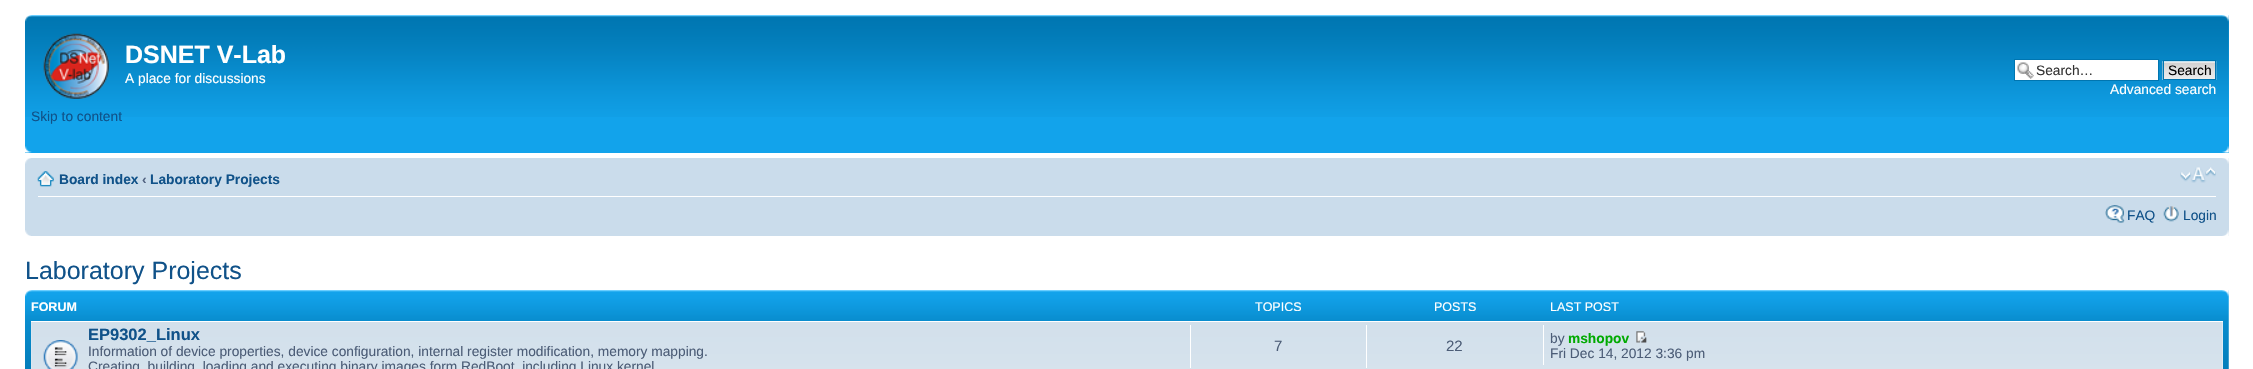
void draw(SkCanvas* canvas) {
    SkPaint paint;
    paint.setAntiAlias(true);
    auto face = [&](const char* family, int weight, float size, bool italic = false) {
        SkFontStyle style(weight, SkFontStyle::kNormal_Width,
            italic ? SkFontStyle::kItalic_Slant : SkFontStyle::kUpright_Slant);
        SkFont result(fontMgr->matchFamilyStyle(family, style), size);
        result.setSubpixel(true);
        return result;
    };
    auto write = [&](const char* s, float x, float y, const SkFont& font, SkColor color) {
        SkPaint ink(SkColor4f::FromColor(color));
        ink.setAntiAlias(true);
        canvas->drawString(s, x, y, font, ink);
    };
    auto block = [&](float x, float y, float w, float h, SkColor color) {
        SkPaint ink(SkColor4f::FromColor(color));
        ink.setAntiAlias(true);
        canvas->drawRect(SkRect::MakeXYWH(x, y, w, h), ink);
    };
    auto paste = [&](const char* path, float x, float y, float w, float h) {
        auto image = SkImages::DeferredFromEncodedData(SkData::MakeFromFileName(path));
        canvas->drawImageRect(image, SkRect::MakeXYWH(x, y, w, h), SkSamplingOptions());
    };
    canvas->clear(SK_ColorWHITE);
    block(25, 15, 2204, 138, SkColorSetRGB(18, 163, 235));
    paste("pic1.png", 25, 15, 2204, 102);
    paste("pic2.png", 25, 15, 7, 7);
    paste("pic3.png", 2222, 15, 7, 7);
    paste("pic4.png", 43, 33, 66, 66);
    auto kFont1 = face("Liberation Sans", 700, 25);
    write("DSNET V-Lab", 125, 63, kFont1, SK_ColorWHITE);
    auto kFont2 = face("Liberation Sans", 400, 13.75f);
    write("A place for discussions", 125, 83, kFont2, SK_ColorWHITE);
    write("Skip to content", 31, 121, kFont2, SkColorSetRGB(16, 82, 137));
    block(2015, 60, 143, 20, SK_ColorWHITE);
    paste("pic5.png", 2017, 62, 17, 17);
    paint.setStyle(SkPaint::kStroke_Style);
    paint.setStrokeWidth(1);
    paint.setColor(SkColorSetRGB(0, 117, 176));
    canvas->drawRect(SkRect::MakeXYWH(2014.5f, 59.5f, 144, 21), paint);
    write("Search…", 2036, 75, kFont2, SkColorSetRGB(51, 51, 51));
    paste("pic6.png", 2162, 61, 55, 19);
    canvas->drawRect(SkRect::MakeXYWH(2163.5f, 60.5f, 52, 19), paint);
    write("Search", 2168, 75, kFont2, SK_ColorBLACK);
    write("Advanced search", 2110, 94, kFont2, SK_ColorWHITE);
    paste("pic7.png", 25, 146, 7, 7);
    paste("pic8.png", 2222, 146, 7, 7);
    block(25, 158, 2204, 78, SkColorSetRGB(202, 220, 235));
    paste("pic9.png", 25, 158, 6, 6);
    paste("pic10.png", 2222, 158, 7, 6);
    block(38, 196, 2178, 1, SK_ColorWHITE);
    paste("pic11.png", 37, 171, 17, 16);
    auto kFont3 = face("Liberation Sans", 700, 13.75f);
    write("Board index", 59, 184, kFont3, SkColorSetRGB(16, 82, 137));
    write("‹", 142, 184, kFont3, SkColorSetRGB(83, 100, 130));
    write("Laboratory Projects", 150, 184, kFont3, SkColorSetRGB(16, 82, 137));
    paste("pic12.png", 2180, 167, 36, 16);
    paste("pic13.png", 2105, 205, 20, 18);
    write("FAQ", 2127, 220, kFont2, SkColorSetRGB(16, 82, 137));
    paste("pic14.png", 2163, 206, 16, 16);
    write("Login", 2183, 220, kFont2, SkColorSetRGB(16, 82, 137));
    paste("pic15.png", 25, 230, 6, 6);
    paste("pic16.png", 2222, 230, 7, 6);
    auto kFont4 = face("Liberation Sans", 400, 25);
    write("Laboratory Projects", 25, 279, kFont4, SkColorSetRGB(16, 82, 137));
    paste("pic17.png", 25, 290, 2204, 79);
    paste("pic18.png", 25, 290, 7, 7);
    paste("pic19.png", 2222, 290, 7, 7);
    auto kFont5 = face("Liberation Sans", 700, 12.5f);
    write("FORUM", 31, 311, kFont5, SK_ColorWHITE);
    auto kFont6 = face("Liberation Sans", 400, 12.5f);
    write("TOPICS", 1255, 311, kFont6, SK_ColorWHITE);
    write("POSTS", 1434, 311, kFont6, SK_ColorWHITE);
    write("LAST POST", 1550, 311, kFont6, SK_ColorWHITE);
    block(31, 322, 2192, 47, SkColorSetRGB(238, 245, 249));
    paste("pic20.png", 31, 322, 2192, 47);
    block(31, 321, 2192, 1, SK_ColorWHITE);
    paste("pic21.png", 43, 340, 35, 29);
    auto kFont7 = face("Liberation Sans", 700, 16.5f);
    write("EP9302_Linux", 88, 340, kFont7, SkColorSetRGB(16, 82, 137));
    write("Information of device properties, device configuration, internal register modification, memory mapping.", 88, 356, kFont2, SkColorSetRGB(76, 93, 119));
    write("Creating, building, loading and executing binary images form RedBoot, including Linux kernel", 88, 371, kFont2, SkColorSetRGB(76, 93, 119));
    block(1190, 325, 1, 43, SK_ColorWHITE);
    auto kFont8 = face("Liberation Sans", 400, 15);
    write("7", 1274, 351, kFont8, SkColorSetRGB(76, 93, 119));
    block(1366, 325, 1, 43, SK_ColorWHITE);
    write("22", 1446, 351, kFont8, SkColorSetRGB(76, 93, 119));
    block(1543, 325, 1, 40, SK_ColorWHITE);
    write("by", 1550, 343, kFont2, SkColorSetRGB(76, 93, 119));
    write("mshopov", 1568, 343, kFont3, SkColorSetRGB(0, 170, 0));
    paste("pic22.png", 1636, 331, 11, 12);
    write("Fri Dec 14, 2012 3:36 pm", 1550, 358, kFont2, SkColorSetRGB(76, 93, 119));
}
